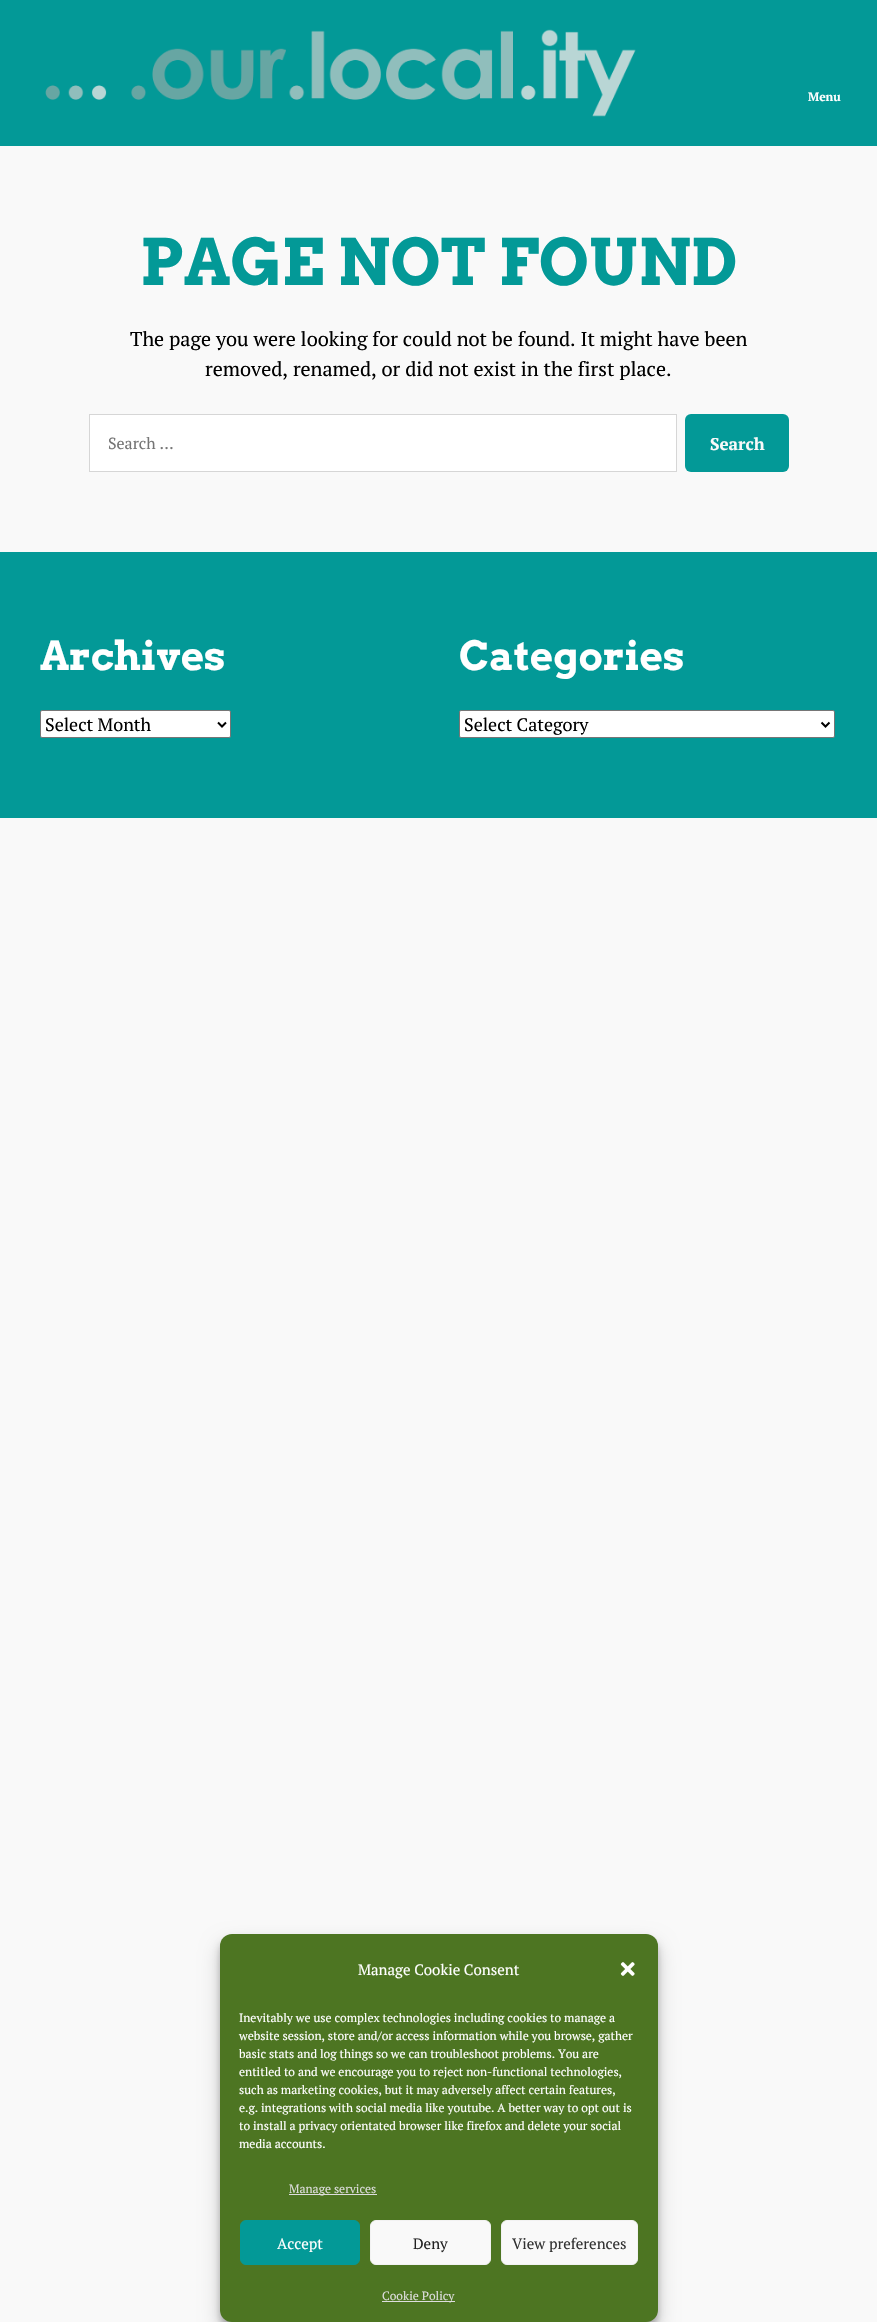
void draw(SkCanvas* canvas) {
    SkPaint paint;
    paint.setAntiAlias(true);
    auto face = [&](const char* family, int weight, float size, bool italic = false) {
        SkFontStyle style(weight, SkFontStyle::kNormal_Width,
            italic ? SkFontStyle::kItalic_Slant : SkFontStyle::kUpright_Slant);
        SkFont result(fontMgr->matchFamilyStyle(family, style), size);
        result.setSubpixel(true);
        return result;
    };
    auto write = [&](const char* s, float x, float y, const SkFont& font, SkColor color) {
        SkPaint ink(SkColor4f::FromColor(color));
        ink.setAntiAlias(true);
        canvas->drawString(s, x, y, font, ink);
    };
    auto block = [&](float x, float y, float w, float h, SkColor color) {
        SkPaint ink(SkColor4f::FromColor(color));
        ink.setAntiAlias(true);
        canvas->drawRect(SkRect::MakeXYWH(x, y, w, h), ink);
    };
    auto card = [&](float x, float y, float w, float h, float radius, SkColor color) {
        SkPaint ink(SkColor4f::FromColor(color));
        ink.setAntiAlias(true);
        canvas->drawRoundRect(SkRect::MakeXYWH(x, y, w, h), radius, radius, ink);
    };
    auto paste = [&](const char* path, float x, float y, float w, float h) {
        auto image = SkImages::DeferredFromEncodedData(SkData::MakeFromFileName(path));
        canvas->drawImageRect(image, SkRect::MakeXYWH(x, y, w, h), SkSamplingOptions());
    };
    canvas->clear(SkColorSetRGB(249, 249, 249));
    block(0, 0, 877, 146, SkColorSetRGB(3, 153, 151));
    paste("pic1.png", 45, 29, 591, 88);
    auto kFont1 = face("PT Serif", 700, 12);
    write("Menu", 808, 101, kFont1, SK_ColorWHITE);
    auto kFont2 = face("Arvo", 700, 64);
    write("PAGE NOT FOUND", 140, 285, kFont2, SkColorSetRGB(3, 153, 151));
    auto kFont3 = face("PT Serif", 400, 20);
    write("The page you were looking for could not be found. It might have been", 130, 346, kFont3, SK_ColorBLACK);
    write("removed, renamed, or did not exist in the first place.", 205, 376, kFont3, SK_ColorBLACK);
    paint.setColor(SK_ColorWHITE);
    canvas->drawRect(SkRect::MakeXYWH(89.5f, 414.5f, 587, 57), paint);
    paint.setStyle(SkPaint::kStroke_Style);
    paint.setStrokeWidth(1);
    paint.setColor(SkColorSetRGB(214, 214, 214));
    canvas->drawRect(SkRect::MakeXYWH(89.5f, 414.5f, 587, 57), paint);
    auto kFont4 = face("PT Serif", 400, 16);
    write("Search …", 108, 449, kFont4, SkColorSetRGB(117, 117, 117));
    card(685, 414, 104, 58, 6, SkColorSetRGB(3, 153, 151));
    auto kFont5 = face("PT Serif", 700, 17);
    write("Search", 710, 450, kFont5, SkColorSetRGB(249, 249, 249));
    block(0, 552, 877, 266, SkColorSetRGB(3, 153, 151));
    auto kFont6 = face("Arvo", 700, 40);
    write("Archives", 40, 670, kFont6, SK_ColorWHITE);
    paint.setStyle(SkPaint::kFill_Style);
    paint.setColor(SK_ColorWHITE);
    canvas->drawRoundRect(SkRect::MakeXYWH(40.5f, 710.5f, 190, 27), 1.5f, 1.5f, paint);
    paint.setStyle(SkPaint::kStroke_Style);
    paint.setColor(SkColorSetRGB(118, 118, 118));
    canvas->drawRoundRect(SkRect::MakeXYWH(40.5f, 710.5f, 190, 27), 1.5f, 1.5f, paint);
    paint.setStrokeWidth(2);
    paint.setColor(SK_ColorBLACK);
    canvas->drawPath(SkPathBuilder().moveTo(218, 722.5f).lineTo(222, 726.5f).lineTo(226, 722.5f).detach(), paint);
    auto kFont7 = face("PT Serif", 400, 18);
    write("Select Month", 45, 731, kFont7, SK_ColorBLACK);
    write("Categories", 459, 670, kFont6, SK_ColorWHITE);
    paint.setStyle(SkPaint::kFill_Style);
    paint.setColor(SK_ColorWHITE);
    canvas->drawRoundRect(SkRect::MakeXYWH(459.5f, 710.5f, 375, 27), 1.5f, 1.5f, paint);
    paint.setStyle(SkPaint::kStroke_Style);
    paint.setStrokeWidth(1);
    paint.setColor(SkColorSetRGB(118, 118, 118));
    canvas->drawRoundRect(SkRect::MakeXYWH(459.5f, 710.5f, 375, 27), 1.5f, 1.5f, paint);
    paint.setStrokeWidth(2);
    paint.setColor(SK_ColorBLACK);
    canvas->drawPath(SkPathBuilder().moveTo(821.5f, 722.5f).lineTo(825.5f, 726.5f).lineTo(829.5f, 722.5f).detach(), paint);
    write("Select Category", 464, 731, kFont7, SK_ColorBLACK);
    paint.setStyle(SkPaint::kFill_Style);
    paint.setColor(SkColorSetARGB(59, 0, 0, 0));
    paint.setMaskFilter(SkMaskFilter::MakeBlur(kNormal_SkBlurStyle, 3));
    canvas->drawRoundRect(SkRect::MakeXYWH(220, 1940, 438, 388), 12, 12, paint);
    paint.setMaskFilter(nullptr);
    paint.setColor(SkColorSetARGB(48, 0, 0, 0));
    paint.setMaskFilter(SkMaskFilter::MakeBlur(kNormal_SkBlurStyle, 10));
    canvas->drawRoundRect(SkRect::MakeXYWH(220, 1944, 438, 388), 12, 12, paint);
    paint.setMaskFilter(nullptr);
    card(220, 1934, 438, 388, 12, SkColorSetRGB(77, 117, 34));
    auto kFont8 = face("PT Serif", 400, 15);
    write("Manage Cookie Consent", 358, 1975, kFont8, SK_ColorWHITE);
    paste("pic2.png", 620, 1962, 15, 14);
    auto kFont9 = face("PT Serif", 400, 12);
    write("Inevitably we use complex technologies including cookies to manage a", 239, 2022, kFont9, SK_ColorWHITE);
    write("website session, store and/or access information while you browse, gather", 239, 2040, kFont9, SK_ColorWHITE);
    write("basic stats and log things so we can troubleshoot problems. You are", 239, 2058, kFont9, SK_ColorWHITE);
    write("entitled to and we encourage you to reject non-functional technologies,", 239, 2076, kFont9, SK_ColorWHITE);
    write("such as marketing cookies, but it may adversely affect certain features,", 239, 2094, kFont9, SK_ColorWHITE);
    write("e.g. integrations with social media like youtube. A better way to opt out is", 239, 2112, kFont9, SK_ColorWHITE);
    write("to install a privacy orientated browser like firefox and delete your social", 239, 2130, kFont9, SK_ColorWHITE);
    write("media accounts.", 239, 2148, kFont9, SK_ColorWHITE);
    block(289, 2194, 88, 1, SkColorSetRGB(221, 221, 221));
    write("Manage services", 289, 2193, kFont9, SkColorSetRGB(221, 221, 221));
    paint.setColor(SkColorSetRGB(3, 153, 151));
    canvas->drawRoundRect(SkRect::MakeXYWH(240.5f, 2220.5f, 119, 44), 5.5f, 5.5f, paint);
    paint.setStyle(SkPaint::kStroke_Style);
    paint.setStrokeWidth(1);
    canvas->drawRoundRect(SkRect::MakeXYWH(240.5f, 2220.5f, 119, 44), 5.5f, 5.5f, paint);
    write("Accept", 277, 2249, kFont8, SK_ColorWHITE);
    paint.setStyle(SkPaint::kFill_Style);
    paint.setColor(SkColorSetRGB(249, 249, 249));
    canvas->drawRoundRect(SkRect::MakeXYWH(370.5f, 2220.5f, 120, 44), 5.5f, 5.5f, paint);
    paint.setStyle(SkPaint::kStroke_Style);
    paint.setColor(SkColorSetRGB(242, 242, 242));
    canvas->drawRoundRect(SkRect::MakeXYWH(370.5f, 2220.5f, 120, 44), 5.5f, 5.5f, paint);
    write("Deny", 413, 2249, kFont8, SkColorSetRGB(34, 34, 34));
    paint.setStyle(SkPaint::kFill_Style);
    paint.setColor(SkColorSetRGB(249, 249, 249));
    canvas->drawRoundRect(SkRect::MakeXYWH(501.5f, 2220.5f, 136, 44), 5.5f, 5.5f, paint);
    paint.setStyle(SkPaint::kStroke_Style);
    paint.setColor(SkColorSetRGB(242, 242, 242));
    canvas->drawRoundRect(SkRect::MakeXYWH(501.5f, 2220.5f, 136, 44), 5.5f, 5.5f, paint);
    write("View preferences", 512, 2249, kFont8, SkColorSetRGB(51, 51, 51));
    block(382, 2301, 73, 1, SkColorSetRGB(221, 221, 221));
    write("Cookie Policy", 382, 2300, kFont9, SkColorSetRGB(221, 221, 221));
}
